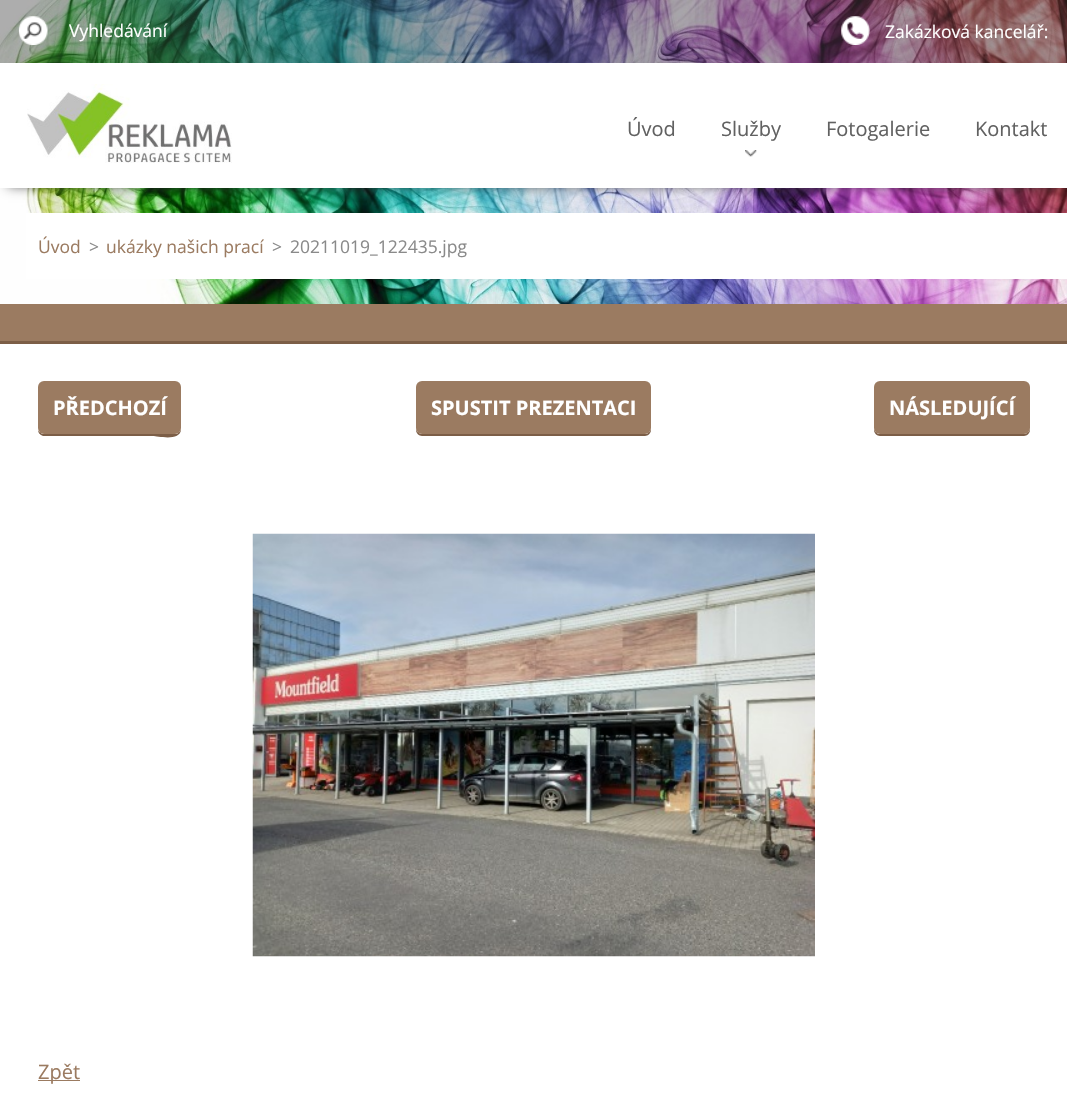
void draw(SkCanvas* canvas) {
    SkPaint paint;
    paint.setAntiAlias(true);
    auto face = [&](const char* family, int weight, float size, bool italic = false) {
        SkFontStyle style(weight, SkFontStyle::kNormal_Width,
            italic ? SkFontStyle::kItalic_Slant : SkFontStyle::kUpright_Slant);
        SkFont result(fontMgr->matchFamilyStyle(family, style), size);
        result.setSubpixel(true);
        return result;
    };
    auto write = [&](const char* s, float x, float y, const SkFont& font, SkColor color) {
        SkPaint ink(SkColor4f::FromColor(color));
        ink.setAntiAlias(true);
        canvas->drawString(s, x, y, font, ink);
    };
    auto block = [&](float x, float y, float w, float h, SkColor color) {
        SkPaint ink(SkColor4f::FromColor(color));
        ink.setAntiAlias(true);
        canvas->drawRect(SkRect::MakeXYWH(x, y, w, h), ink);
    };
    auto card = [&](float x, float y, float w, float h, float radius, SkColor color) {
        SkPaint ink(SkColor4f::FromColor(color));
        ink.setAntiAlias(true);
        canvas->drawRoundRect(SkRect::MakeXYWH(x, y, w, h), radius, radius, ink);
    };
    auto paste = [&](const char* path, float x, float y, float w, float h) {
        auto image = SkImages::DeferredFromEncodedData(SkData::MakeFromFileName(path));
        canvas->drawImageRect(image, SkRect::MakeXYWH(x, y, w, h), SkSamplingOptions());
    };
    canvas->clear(SK_ColorWHITE);
    paste("pic1.png", 0, 0, 1067, 304);
    block(0, 0, 1067, 63, SkColorSetARGB(102, 53, 53, 53));
    paste("pic2.png", 18, 16, 30, 29);
    auto kFont1 = face("Open Sans", 400, 17.5f);
    write("Vyhledávání", 69, 37, kFont1, SK_ColorWHITE);
    paste("pic3.png", 841, 16, 29, 29);
    write("Zakázková kancelář:", 885, 38, kFont1, SK_ColorWHITE);
    paint.setColor(SkColorSetRGB(53, 53, 53));
    paint.setMaskFilter(SkMaskFilter::MakeBlur(kNormal_SkBlurStyle, 6));
    canvas->drawRect(SkRect::MakeXYWH(8, 75, 1052, 110), paint);
    paint.setMaskFilter(nullptr);
    block(0, 63, 1067, 125, SK_ColorWHITE);
    paste("pic4.png", 27, 84, 205, 79);
    auto kFont2 = face("Open Sans", 400, 20);
    write("Úvod", 627, 136, kFont2, SkColorSetRGB(97, 97, 97));
    write("Služby", 721, 136, kFont2, SkColorSetRGB(97, 97, 97));
    paste("pic5.png", 745, 150, 12, 7);
    write("Fotogalerie", 826, 136, kFont2, SkColorSetRGB(97, 97, 97));
    write("Kontakt", 975, 136, kFont2, SkColorSetRGB(97, 97, 97));
    block(26, 213, 1041, 66, SK_ColorWHITE);
    write("Úvod", 38, 253, kFont1, SkColorSetRGB(155, 123, 97));
    write(">", 89, 253, kFont1, SkColorSetRGB(138, 138, 138));
    write("ukázky našich prací", 106, 253, kFont1, SkColorSetRGB(155, 123, 97));
    write(">", 272, 253, kFont1, SkColorSetRGB(138, 138, 138));
    write("20211019_122435.jpg", 290, 253, kFont1, SkColorSetRGB(138, 138, 138));
    block(0, 304, 1067, 37, SkColorSetRGB(155, 123, 97));
    block(0, 341, 1067, 3, SkColorSetRGB(124, 94, 71));
    paint.setColor(SkColorSetRGB(124, 94, 71));
    canvas->drawPath(SkPathBuilder().moveTo(38, 430).cubicTo(38, 433, 40, 435, 43, 436).lineTo(153, 436).cubicTo(157, 436, 181, 442, 181, 429).cubicTo(180, 432, 178, 434, 175, 434).lineTo(44, 434).cubicTo(41, 434, 39, 432, 38, 430).close().detach(), paint);
    card(38, 381, 143, 53, 6, SkColorSetRGB(155, 123, 97));
    auto kFont3 = face("Open Sans", 700, 20);
    write("PŘEDCHOZÍ", 53, 415, kFont3, SK_ColorWHITE);
    canvas->drawPath(SkPathBuilder().moveTo(416, 388).lineTo(416, 430).cubicTo(416, 433, 419, 436, 422, 436).lineTo(645, 436).cubicTo(648, 436, 651, 433, 651, 430).lineTo(651, 429).cubicTo(650, 432, 648, 434, 645, 434).lineTo(422, 434).cubicTo(419, 434, 416, 431, 416, 428).close().detach(), paint);
    card(416, 381, 235, 53, 6, SkColorSetRGB(155, 123, 97));
    write("SPUSTIT PREZENTACI", 431, 415, kFont3, SK_ColorWHITE);
    canvas->drawPath(SkPathBuilder().moveTo(874, 429).lineTo(874, 430).cubicTo(874, 433, 877, 436, 880, 436).lineTo(1024, 436).cubicTo(1027, 436, 1030, 433, 1030, 430).lineTo(1030, 428).cubicTo(1030, 431, 1027, 434, 1024, 434).lineTo(880, 434).cubicTo(877, 434, 875, 432, 874, 429).close().detach(), paint);
    card(874, 381, 156, 53, 6, SkColorSetRGB(155, 123, 97));
    write("NÁSLEDUJÍCÍ", 889, 415, kFont3, SK_ColorWHITE);
    paste("pic6.png", 252, 533, 563, 424);
    block(38, 1080, 42, 1, SkColorSetRGB(155, 123, 97));
    write("Zpět", 38, 1079, kFont2, SkColorSetRGB(155, 123, 97));
}
